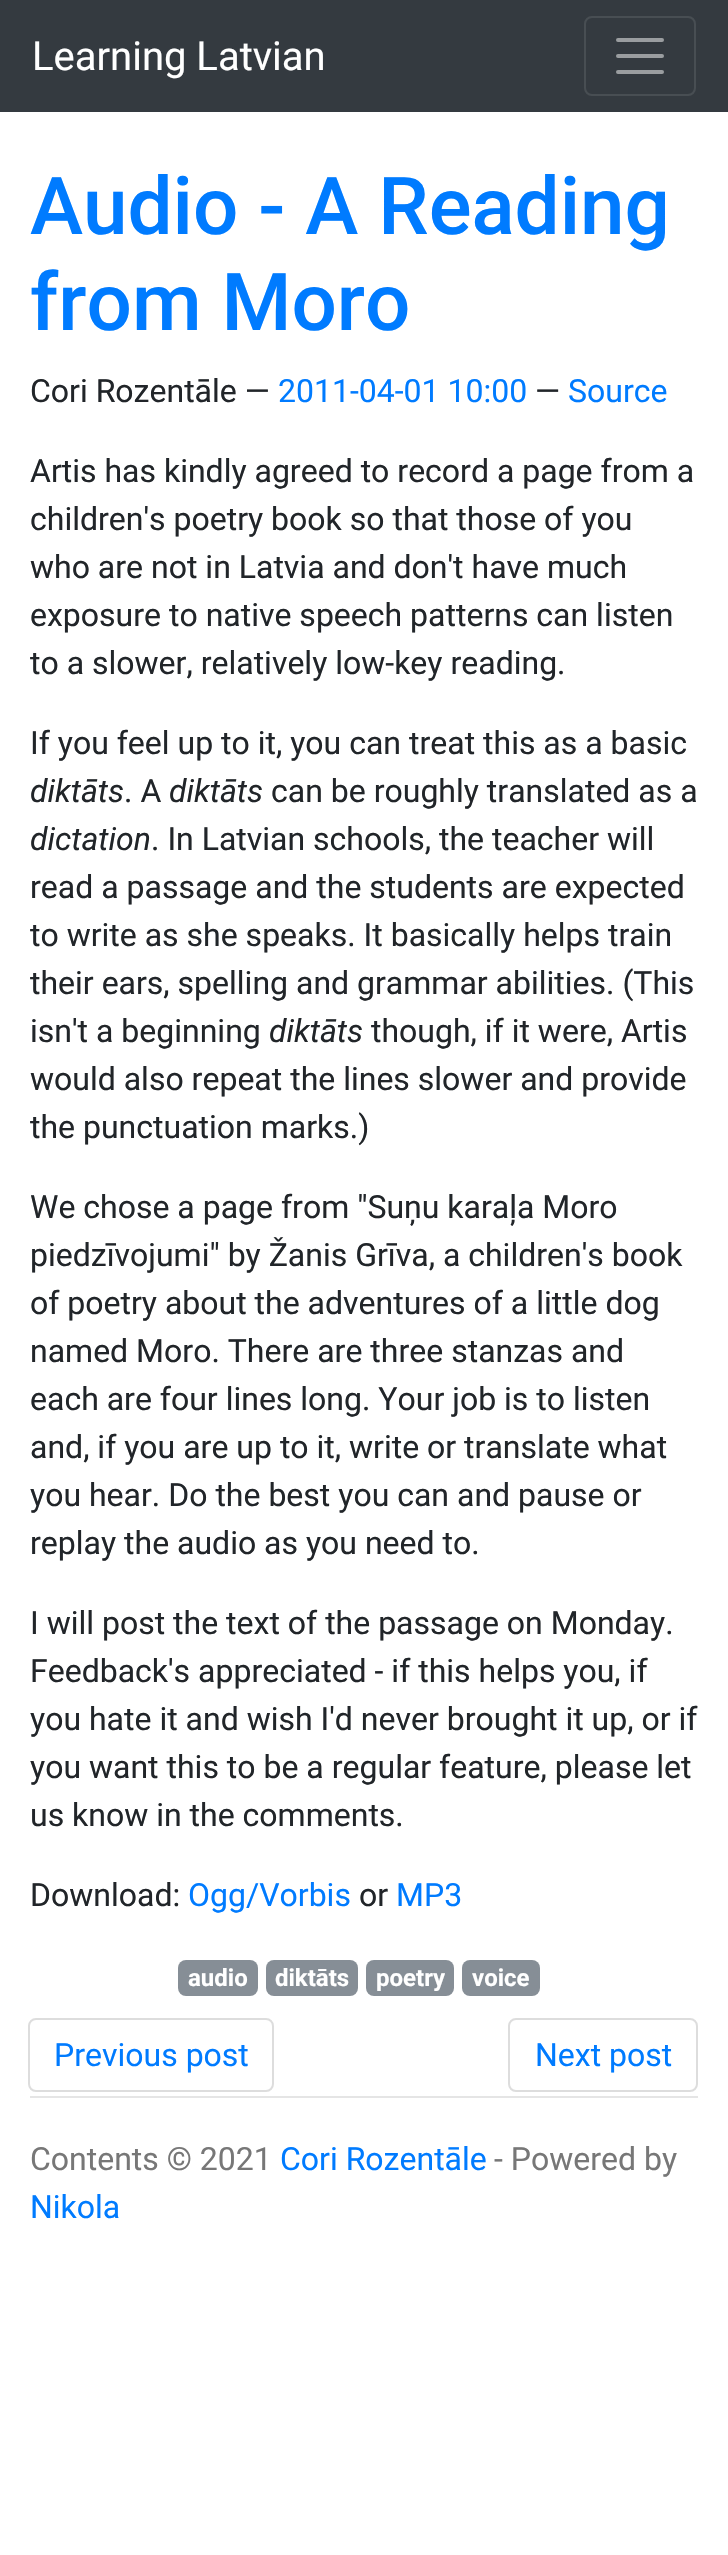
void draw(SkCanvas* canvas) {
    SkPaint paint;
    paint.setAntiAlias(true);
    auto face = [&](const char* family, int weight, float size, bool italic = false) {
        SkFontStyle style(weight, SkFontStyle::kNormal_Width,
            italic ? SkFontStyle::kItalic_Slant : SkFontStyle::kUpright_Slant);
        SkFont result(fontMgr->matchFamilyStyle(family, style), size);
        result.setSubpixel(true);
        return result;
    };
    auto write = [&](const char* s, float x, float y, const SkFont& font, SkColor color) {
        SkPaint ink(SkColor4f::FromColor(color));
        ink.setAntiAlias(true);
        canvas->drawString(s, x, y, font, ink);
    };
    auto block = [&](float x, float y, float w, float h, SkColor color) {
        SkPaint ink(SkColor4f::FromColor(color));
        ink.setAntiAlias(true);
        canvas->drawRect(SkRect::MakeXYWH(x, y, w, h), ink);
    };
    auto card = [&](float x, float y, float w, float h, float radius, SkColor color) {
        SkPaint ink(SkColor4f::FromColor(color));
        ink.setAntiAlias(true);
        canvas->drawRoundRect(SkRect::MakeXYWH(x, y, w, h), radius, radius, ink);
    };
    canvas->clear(SK_ColorWHITE);
    block(0, 0, 728, 112, SkColorSetRGB(52, 58, 64));
    auto kFont1 = face("Roboto", 400, 40);
    write("Learning Latvian", 32, 70, kFont1, SK_ColorWHITE);
    paint.setStyle(SkPaint::kStroke_Style);
    paint.setStrokeWidth(2);
    paint.setColor(SkColorSetRGB(72, 78, 83));
    canvas->drawRoundRect(SkRect::MakeXYWH(585, 17, 110, 78), 7, 7, paint);
    paint.setStrokeWidth(4);
    paint.setStrokeCap(SkPaint::kRound_Cap);
    paint.setColor(SkColorSetRGB(154, 157, 160));
    canvas->drawPath(SkPathBuilder().moveTo(618, 40).lineTo(662, 40).moveTo(618, 56).lineTo(662, 56).moveTo(618, 72).lineTo(662, 72).detach(), paint);
    auto kFont2 = face("Roboto", 500, 80);
    write("Audio - A Reading", 30, 234, kFont2, SkColorSetRGB(0, 123, 255));
    write("from Moro", 30, 330, kFont2, SkColorSetRGB(0, 123, 255));
    auto kFont3 = face("Roboto", 400, 32);
    write("Cori Rozentāle —", 30, 402, kFont3, SkColorSetRGB(33, 37, 41));
    write("2011-04-01 10:00", 278, 402, kFont3, SkColorSetRGB(0, 123, 255));
    write("—", 535, 402, kFont3, SkColorSetRGB(33, 37, 41));
    write("Source", 568, 402, kFont3, SkColorSetRGB(0, 123, 255));
    write("Artis has kindly agreed to record a page from a", 30, 482, kFont3, SkColorSetRGB(33, 37, 41));
    write("children's poetry book so that those of you", 30, 530, kFont3, SkColorSetRGB(33, 37, 41));
    write("who are not in Latvia and don't have much", 30, 578, kFont3, SkColorSetRGB(33, 37, 41));
    write("exposure to native speech patterns can listen", 30, 626, kFont3, SkColorSetRGB(33, 37, 41));
    write("to a slower, relatively low-key reading.", 30, 674, kFont3, SkColorSetRGB(33, 37, 41));
    write("If you feel up to it, you can treat this as a basic", 30, 754, kFont3, SkColorSetRGB(33, 37, 41));
    auto kFont4 = face("Roboto", 400, 32, true);
    write("diktāts", 30, 802, kFont4, SkColorSetRGB(33, 37, 41));
    write(". A", 124, 802, kFont3, SkColorSetRGB(33, 37, 41));
    write("diktāts", 169, 802, kFont4, SkColorSetRGB(33, 37, 41));
    write("can be roughly translated as a", 271, 802, kFont3, SkColorSetRGB(33, 37, 41));
    write("dictation", 30, 850, kFont4, SkColorSetRGB(33, 37, 41));
    write(". In Latvian schools, the teacher will", 151, 850, kFont3, SkColorSetRGB(33, 37, 41));
    write("read a passage and the students are expected", 30, 898, kFont3, SkColorSetRGB(33, 37, 41));
    write("to write as she speaks. It basically helps train", 30, 946, kFont3, SkColorSetRGB(33, 37, 41));
    write("their ears, spelling and grammar abilities. (This", 30, 994, kFont3, SkColorSetRGB(33, 37, 41));
    write("isn't a beginning", 30, 1042, kFont3, SkColorSetRGB(33, 37, 41));
    write("diktāts", 269, 1042, kFont4, SkColorSetRGB(33, 37, 41));
    write("though, if it were, Artis", 371, 1042, kFont3, SkColorSetRGB(33, 37, 41));
    write("would also repeat the lines slower and provide", 30, 1090, kFont3, SkColorSetRGB(33, 37, 41));
    write("the punctuation marks.)", 30, 1138, kFont3, SkColorSetRGB(33, 37, 41));
    write("We chose a page from \"Suņu karaļa Moro", 30, 1218, kFont3, SkColorSetRGB(33, 37, 41));
    write("piedzīvojumi\" by Žanis Grīva, a children's book", 30, 1266, kFont3, SkColorSetRGB(33, 37, 41));
    write("of poetry about the adventures of a little dog", 30, 1314, kFont3, SkColorSetRGB(33, 37, 41));
    write("named Moro. There are three stanzas and", 30, 1362, kFont3, SkColorSetRGB(33, 37, 41));
    write("each are four lines long. Your job is to listen", 30, 1410, kFont3, SkColorSetRGB(33, 37, 41));
    write("and, if you are up to it, write or translate what", 30, 1458, kFont3, SkColorSetRGB(33, 37, 41));
    write("you hear. Do the best you can and pause or", 30, 1506, kFont3, SkColorSetRGB(33, 37, 41));
    write("replay the audio as you need to.", 30, 1554, kFont3, SkColorSetRGB(33, 37, 41));
    write("I will post the text of the passage on Monday.", 30, 1634, kFont3, SkColorSetRGB(33, 37, 41));
    write("Feedback's appreciated - if this helps you, if", 30, 1682, kFont3, SkColorSetRGB(33, 37, 41));
    write("you hate it and wish I'd never brought it up, or if", 30, 1730, kFont3, SkColorSetRGB(33, 37, 41));
    write("you want this to be a regular feature, please let", 30, 1778, kFont3, SkColorSetRGB(33, 37, 41));
    write("us know in the comments.", 30, 1826, kFont3, SkColorSetRGB(33, 37, 41));
    write("Download:", 30, 1906, kFont3, SkColorSetRGB(33, 37, 41));
    write("Ogg/Vorbis", 188, 1906, kFont3, SkColorSetRGB(0, 123, 255));
    write("or", 359, 1906, kFont3, SkColorSetRGB(33, 37, 41));
    write("MP3", 396, 1906, kFont3, SkColorSetRGB(0, 123, 255));
    card(178, 1960, 80, 36, 8, SkColorSetRGB(134, 142, 150));
    auto kFont5 = face("Roboto", 700, 24);
    write("audio", 188, 1986, kFont5, SK_ColorWHITE);
    card(266, 1960, 92, 36, 8, SkColorSetRGB(134, 142, 150));
    write("diktāts", 275, 1986, kFont5, SK_ColorWHITE);
    card(366, 1960, 88, 36, 8, SkColorSetRGB(134, 142, 150));
    write("poetry", 376, 1986, kFont5, SK_ColorWHITE);
    card(462, 1960, 78, 36, 8, SkColorSetRGB(134, 142, 150));
    write("voice", 472, 1986, kFont5, SK_ColorWHITE);
    paint.setStrokeWidth(2);
    paint.setStrokeCap(SkPaint::kButt_Cap);
    paint.setColor(SkColorSetRGB(221, 221, 221));
    canvas->drawRoundRect(SkRect::MakeXYWH(29, 2019, 244, 72), 7, 7, paint);
    write("Previous post", 54, 2066, kFont3, SkColorSetRGB(0, 123, 255));
    canvas->drawRoundRect(SkRect::MakeXYWH(509, 2019, 188, 72), 7, 7, paint);
    write("Next post", 535, 2066, kFont3, SkColorSetRGB(0, 123, 255));
    block(30, 2096, 668, 2, SkColorSetRGB(229, 229, 229));
    write("Contents © 2021", 30, 2170, kFont3, SkColorSetRGB(119, 119, 119));
    write("Cori Rozentāle", 280, 2170, kFont3, SkColorSetRGB(0, 123, 255));
    write("- Powered by", 494, 2170, kFont3, SkColorSetRGB(119, 119, 119));
    write("Nikola", 30, 2218, kFont3, SkColorSetRGB(0, 123, 255));
}
